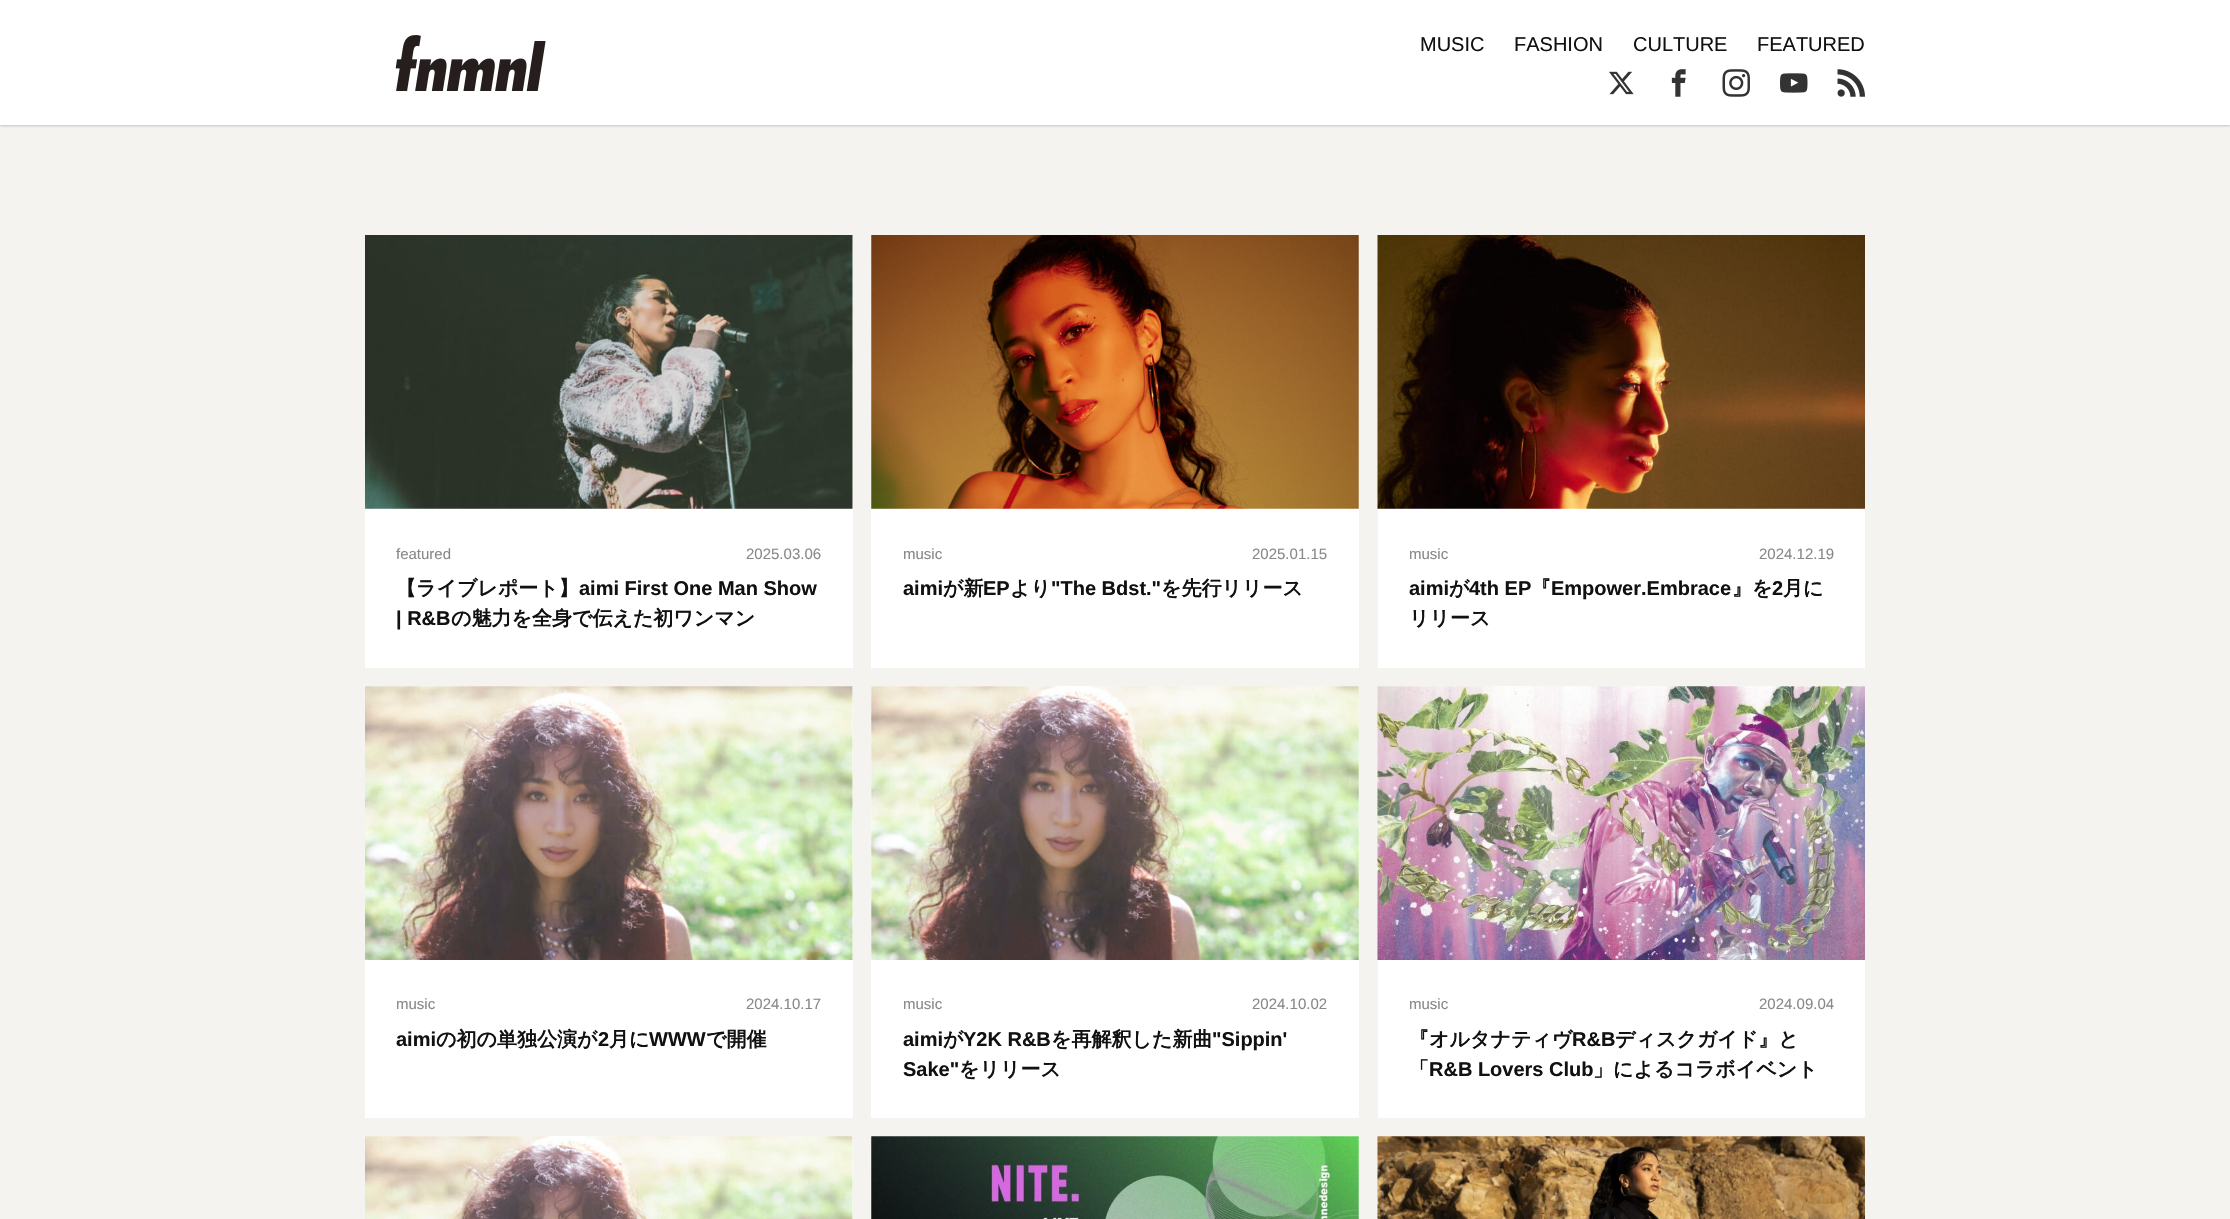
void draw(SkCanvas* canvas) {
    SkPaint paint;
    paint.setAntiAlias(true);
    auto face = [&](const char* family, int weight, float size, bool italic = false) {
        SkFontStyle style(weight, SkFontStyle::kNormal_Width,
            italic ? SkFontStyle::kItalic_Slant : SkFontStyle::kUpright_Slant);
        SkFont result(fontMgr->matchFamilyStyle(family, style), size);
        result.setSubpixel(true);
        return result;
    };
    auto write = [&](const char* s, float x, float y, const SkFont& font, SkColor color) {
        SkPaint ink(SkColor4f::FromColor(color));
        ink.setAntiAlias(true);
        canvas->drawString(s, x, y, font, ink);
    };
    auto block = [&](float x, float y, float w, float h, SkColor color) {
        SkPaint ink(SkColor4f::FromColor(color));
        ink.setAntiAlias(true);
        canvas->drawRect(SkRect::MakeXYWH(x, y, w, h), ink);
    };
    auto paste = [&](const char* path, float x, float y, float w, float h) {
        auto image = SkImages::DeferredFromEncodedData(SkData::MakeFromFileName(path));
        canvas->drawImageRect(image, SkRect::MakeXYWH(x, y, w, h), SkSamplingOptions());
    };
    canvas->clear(SkColorSetRGB(244, 243, 240));
    paint.setColor(SkColorSetARGB(51, 0, 0, 0));
    paint.setMaskFilter(SkMaskFilter::MakeBlur(kNormal_SkBlurStyle, 1));
    canvas->drawRect(SkRect::MakeXYWH(0, 1, 2230, 125), paint);
    paint.setMaskFilter(nullptr);
    block(0, 0, 2230, 125, SK_ColorWHITE);
    paste("pic1.png", 395, 35, 151, 56);
    auto kFont1 = face("Liberation Sans", 400, 20);
    write("MUSIC", 1420, 51, kFont1, SkColorSetRGB(17, 17, 17));
    write("FASHION", 1514, 51, kFont1, SkColorSetRGB(17, 17, 17));
    write("CULTURE", 1633, 51, kFont1, SkColorSetRGB(17, 17, 17));
    write("FEATURED", 1757, 51, kFont1, SkColorSetRGB(17, 17, 17));
    paste("pic2.png", 1609, 71, 25, 24);
    paste("pic3.png", 1671, 69, 15, 28);
    paste("pic4.png", 1722, 69, 28, 28);
    paste("pic5.png", 1780, 73, 28, 20);
    paste("pic6.png", 1837, 69, 28, 28);
    block(365, 235, 488, 433, SK_ColorWHITE);
    paste("pic7.png", 365, 235, 488, 274);
    auto kFont2 = face("Liberation Sans", 400, 15);
    write("featured", 396, 559, kFont2, SkColorSetRGB(136, 136, 136));
    write("2025.03.06", 746, 559, kFont2, SkColorSetRGB(136, 136, 136));
    auto kFont3 = face("WenQuanYi Zen Hei", 700, 20);
    write("【ライブレポート】", 396, 595, kFont3, SkColorSetRGB(17, 17, 17));
    auto kFont4 = face("Liberation Sans", 700, 20);
    write("aimi First One Man Show", 579, 595, kFont4, SkColorSetRGB(17, 17, 17));
    write("| R&B", 396, 625, kFont4, SkColorSetRGB(17, 17, 17));
    write("の魅力を全身で伝えた初ワンマン", 451, 625, kFont3, SkColorSetRGB(17, 17, 17));
    block(871, 235, 488, 433, SK_ColorWHITE);
    paste("pic8.png", 871, 235, 488, 274);
    write("music", 903, 559, kFont2, SkColorSetRGB(136, 136, 136));
    write("2025.01.15", 1252, 559, kFont2, SkColorSetRGB(136, 136, 136));
    write("aimi", 903, 595, kFont4, SkColorSetRGB(17, 17, 17));
    write("が新", 943, 595, kFont3, SkColorSetRGB(17, 17, 17));
    write("EP", 983, 595, kFont4, SkColorSetRGB(17, 17, 17));
    write("より", 1010, 595, kFont3, SkColorSetRGB(17, 17, 17));
    write("\"The Bdst.\"", 1051, 595, kFont4, SkColorSetRGB(17, 17, 17));
    write("を先行リリース", 1161, 595, kFont3, SkColorSetRGB(17, 17, 17));
    block(1378, 508, 487, 160, SK_ColorWHITE);
    paste("pic9.png", 1377, 235, 488, 274);
    write("music", 1409, 559, kFont2, SkColorSetRGB(136, 136, 136));
    write("2024.12.19", 1759, 559, kFont2, SkColorSetRGB(136, 136, 136));
    write("aimi", 1409, 595, kFont4, SkColorSetRGB(17, 17, 17));
    write("が", 1449, 595, kFont3, SkColorSetRGB(17, 17, 17));
    write("4th EP", 1469, 595, kFont4, SkColorSetRGB(17, 17, 17));
    write("『", 1531, 595, kFont3, SkColorSetRGB(17, 17, 17));
    write("Empower.Embrace", 1551, 595, kFont4, SkColorSetRGB(17, 17, 17));
    write("』を", 1732, 595, kFont3, SkColorSetRGB(17, 17, 17));
    write("2", 1772, 595, kFont4, SkColorSetRGB(17, 17, 17));
    write("月に", 1783, 595, kFont3, SkColorSetRGB(17, 17, 17));
    write("リリース", 1409, 625, kFont3, SkColorSetRGB(17, 17, 17));
    block(365, 686, 488, 432, SK_ColorWHITE);
    paste("pic10.png", 365, 686, 488, 274);
    write("music", 396, 1009, kFont2, SkColorSetRGB(136, 136, 136));
    write("2024.10.17", 746, 1009, kFont2, SkColorSetRGB(136, 136, 136));
    write("aimi", 396, 1046, kFont4, SkColorSetRGB(17, 17, 17));
    write("の初の単独公演が", 436, 1046, kFont3, SkColorSetRGB(17, 17, 17));
    write("2", 598, 1046, kFont4, SkColorSetRGB(17, 17, 17));
    write("月に", 609, 1046, kFont3, SkColorSetRGB(17, 17, 17));
    write("WWW", 649, 1046, kFont4, SkColorSetRGB(17, 17, 17));
    write("で開催", 706, 1046, kFont3, SkColorSetRGB(17, 17, 17));
    block(871, 686, 488, 432, SK_ColorWHITE);
    paste("pic11.png", 871, 686, 488, 274);
    write("music", 903, 1009, kFont2, SkColorSetRGB(136, 136, 136));
    write("2024.10.02", 1252, 1009, kFont2, SkColorSetRGB(136, 136, 136));
    write("aimi", 903, 1046, kFont4, SkColorSetRGB(17, 17, 17));
    write("が", 943, 1046, kFont3, SkColorSetRGB(17, 17, 17));
    write("Y2K R&B", 963, 1046, kFont4, SkColorSetRGB(17, 17, 17));
    write("を再解釈した新曲", 1051, 1046, kFont3, SkColorSetRGB(17, 17, 17));
    write("\"Sippin'", 1212, 1046, kFont4, SkColorSetRGB(17, 17, 17));
    write("Sake\"", 903, 1076, kFont4, SkColorSetRGB(17, 17, 17));
    write("をリリース", 959, 1076, kFont3, SkColorSetRGB(17, 17, 17));
    block(1378, 686, 487, 432, SK_ColorWHITE);
    paste("pic12.png", 1377, 686, 488, 274);
    write("music", 1409, 1009, kFont2, SkColorSetRGB(136, 136, 136));
    write("2024.09.04", 1759, 1009, kFont2, SkColorSetRGB(136, 136, 136));
    write("『オルタナティヴ", 1409, 1046, kFont3, SkColorSetRGB(17, 17, 17));
    write("R&B", 1572, 1046, kFont4, SkColorSetRGB(17, 17, 17));
    write("ディスクガイド』と", 1615, 1046, kFont3, SkColorSetRGB(17, 17, 17));
    write("「", 1409, 1076, kFont3, SkColorSetRGB(17, 17, 17));
    write("R&B Lovers Club", 1429, 1076, kFont4, SkColorSetRGB(17, 17, 17));
    write("」によるコラボイベント", 1593, 1076, kFont3, SkColorSetRGB(17, 17, 17));
    block(365, 1136, 488, 83, SK_ColorWHITE);
    paste("pic13.png", 365, 1136, 488, 83);
    block(871, 1136, 488, 83, SK_ColorWHITE);
    paste("pic14.png", 871, 1136, 488, 83);
    paste("pic15.png", 1377, 1136, 488, 83);
}
